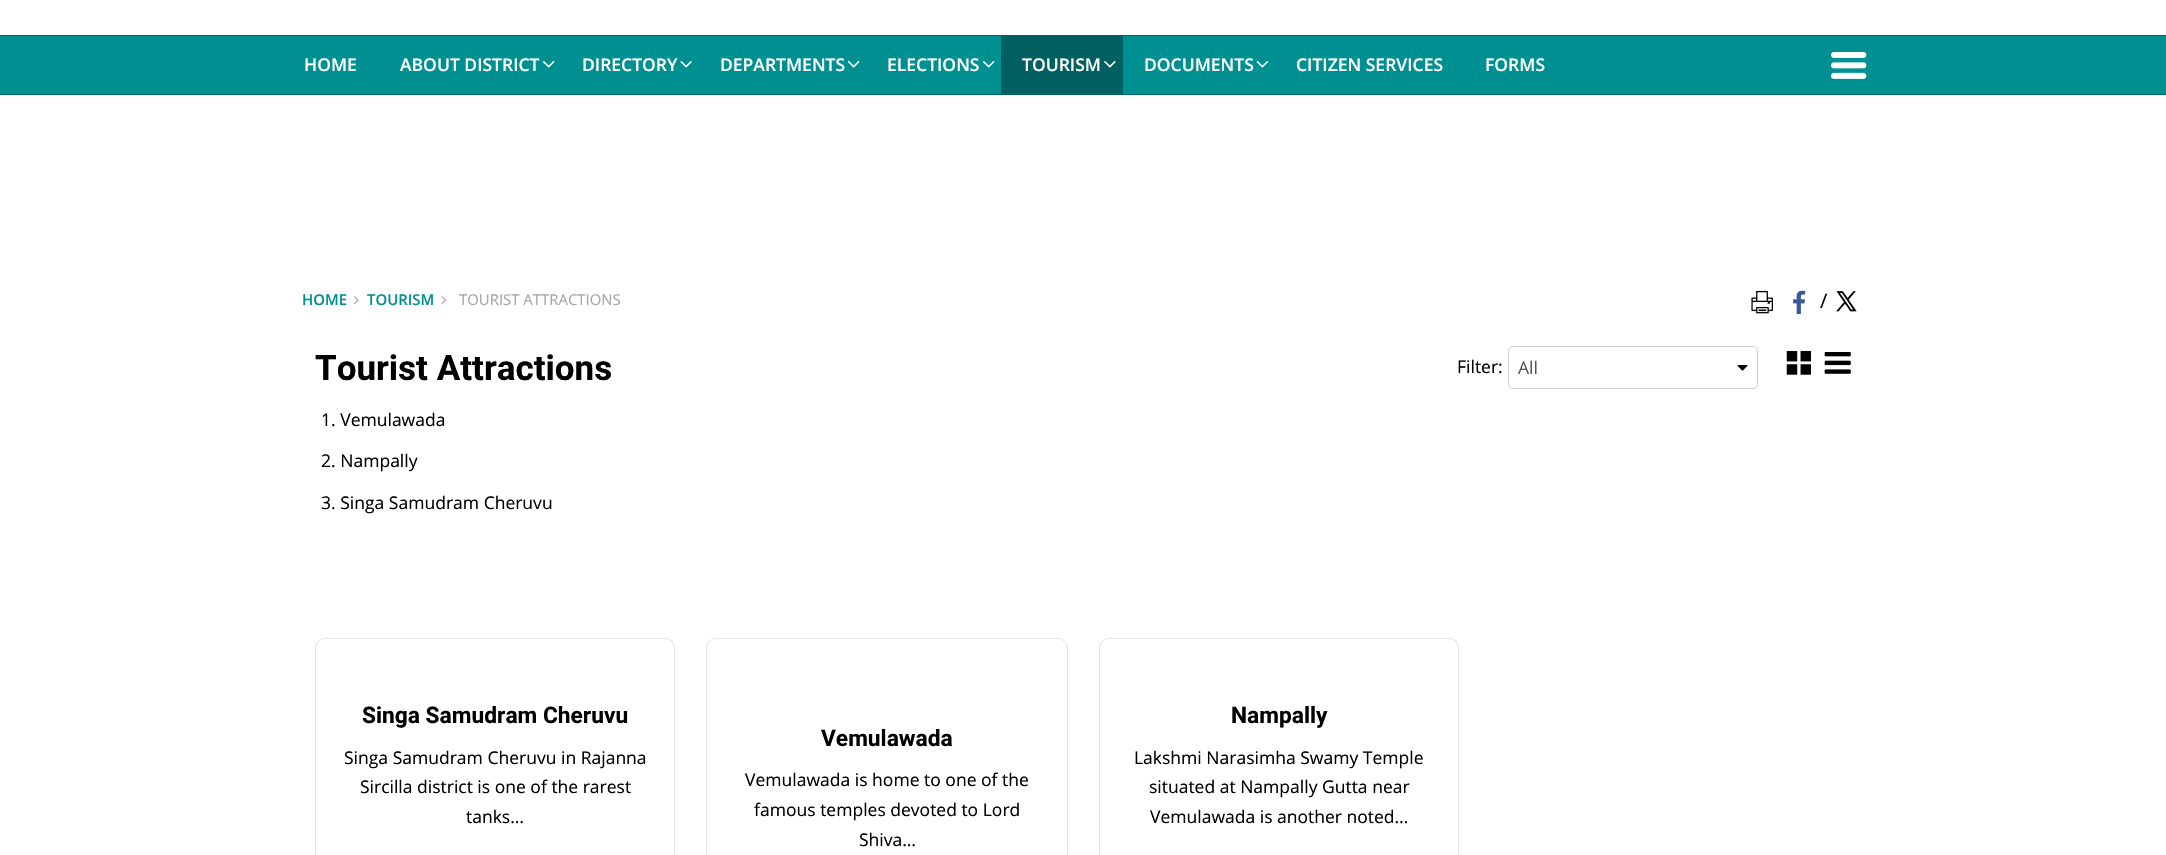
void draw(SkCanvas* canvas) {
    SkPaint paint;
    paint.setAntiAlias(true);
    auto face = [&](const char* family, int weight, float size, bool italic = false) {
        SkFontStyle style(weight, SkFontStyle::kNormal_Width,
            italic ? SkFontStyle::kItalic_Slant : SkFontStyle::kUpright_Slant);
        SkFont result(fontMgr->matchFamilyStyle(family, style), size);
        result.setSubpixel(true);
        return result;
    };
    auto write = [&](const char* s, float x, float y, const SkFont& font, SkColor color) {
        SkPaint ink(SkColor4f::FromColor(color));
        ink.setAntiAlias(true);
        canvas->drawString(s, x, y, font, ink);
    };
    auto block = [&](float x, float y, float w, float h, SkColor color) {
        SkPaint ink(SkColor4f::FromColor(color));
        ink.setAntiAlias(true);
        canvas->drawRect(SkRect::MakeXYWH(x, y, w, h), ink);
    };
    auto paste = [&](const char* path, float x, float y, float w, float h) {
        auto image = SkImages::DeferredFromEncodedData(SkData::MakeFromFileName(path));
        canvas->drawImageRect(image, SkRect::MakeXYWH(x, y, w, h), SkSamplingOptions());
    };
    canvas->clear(SK_ColorWHITE);
    block(0, 36, 2166, 58, SkColorSetRGB(0, 144, 145));
    block(0, 35, 2166, 1, SkColorSetRGB(0, 101, 102));
    block(0, 94, 2166, 1, SkColorSetRGB(0, 101, 102));
    auto kFont1 = face("Open Sans", 600, 17.5f);
    write("HOME", 304, 71, kFont1, SK_ColorWHITE);
    write("ABOUT DISTRICT", 400, 71, kFont1, SK_ColorWHITE);
    paste("pic1.png", 542, 60, 13, 8);
    write("DIRECTORY", 582, 71, kFont1, SK_ColorWHITE);
    paste("pic2.png", 680, 60, 12, 8);
    write("DEPARTMENTS", 720, 71, kFont1, SK_ColorWHITE);
    paste("pic1.png", 847, 60, 13, 8);
    write("ELECTIONS", 887, 71, kFont1, SK_ColorWHITE);
    paste("pic1.png", 982, 60, 13, 8);
    block(1001, 36, 122, 58, SkColorSetRGB(0, 96, 97));
    write("TOURISM", 1022, 71, kFont1, SK_ColorWHITE);
    paste("pic3.png", 1104, 60, 12, 8);
    write("DOCUMENTS", 1144, 71, kFont1, SK_ColorWHITE);
    paste("pic4.png", 1256, 60, 13, 8);
    write("CITIZEN SERVICES", 1296, 71, kFont1, SK_ColorWHITE);
    write("FORMS", 1485, 71, kFont1, SK_ColorWHITE);
    paste("pic5.png", 1831, 52, 36, 27);
    auto kFont2 = face("Open Sans", 600, 14.9f);
    write("HOME", 302, 305, kFont2, SkColorSetRGB(0, 144, 145));
    paste("pic6.png", 354, 296, 5, 9);
    write("TOURISM", 367, 305, kFont2, SkColorSetRGB(0, 144, 145));
    paste("pic7.png", 441, 296, 6, 9);
    auto kFont3 = face("Open Sans", 400, 14.9f);
    write("TOURIST ATTRACTIONS", 459, 305, kFont3, SkColorSetRGB(168, 163, 163));
    paste("pic8.png", 1751, 290, 22, 24);
    paste("pic9.png", 1793, 290, 13, 24);
    auto kFont4 = face("Open Sans", 400, 20);
    write("/", 1820, 308, kFont4, SK_ColorBLACK);
    paste("pic10.png", 1836, 291, 21, 21);
    auto kFont5 = face("Roboto", 700, 35);
    write("Tourist Attractions", 315, 380, kFont5, SK_ColorBLACK);
    auto kFont6 = face("Open Sans", 400, 17.5f);
    write("Filter:", 1457, 373, kFont6, SK_ColorBLACK);
    paste("pic11.png", 1737, 365, 11, 6);
    paint.setStyle(SkPaint::kStroke_Style);
    paint.setStrokeWidth(1);
    paint.setColor(SkColorSetRGB(204, 204, 204));
    canvas->drawRoundRect(SkRect::MakeXYWH(1508.5f, 346.5f, 249, 42), 4.5f, 4.5f, paint);
    write("All", 1518, 374, kFont6, SkColorSetRGB(85, 85, 85));
    paste("pic12.png", 1786, 350, 25, 25);
    paste("pic13.png", 1824, 352, 27, 22);
    write("1. Vemulawada", 321, 426, kFont6, SK_ColorBLACK);
    write("2. Nampally", 321, 467, kFont6, SK_ColorBLACK);
    write("3. Singa Samudram Cheruvu", 321, 509, kFont6, SK_ColorBLACK);
    paint.setColor(SkColorSetRGB(226, 226, 225));
    canvas->drawRoundRect(SkRect::MakeXYWH(315.5f, 638.5f, 359, 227), 9.5f, 9.5f, paint);
    auto kFont7 = face("Roboto", 700, 22.75f);
    write("Singa Samudram Cheruvu", 362, 723, kFont7, SK_ColorBLACK);
    write("Singa Samudram Cheruvu in Rajanna", 344, 764, kFont6, SK_ColorBLACK);
    write("Sircilla district is one of the rarest", 360, 793, kFont6, SK_ColorBLACK);
    write("tanks…", 466, 823, kFont6, SK_ColorBLACK);
    canvas->drawRoundRect(SkRect::MakeXYWH(706.5f, 638.5f, 361, 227), 9.5f, 9.5f, paint);
    write("Vemulawada", 821, 746, kFont7, SK_ColorBLACK);
    write("Vemulawada is home to one of the", 745, 786, kFont6, SK_ColorBLACK);
    write("famous temples devoted to Lord", 754, 816, kFont6, SK_ColorBLACK);
    write("Shiva…", 859, 846, kFont6, SK_ColorBLACK);
    canvas->drawRoundRect(SkRect::MakeXYWH(1099.5f, 638.5f, 359, 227), 9.5f, 9.5f, paint);
    write("Nampally", 1231, 723, kFont7, SK_ColorBLACK);
    write("Lakshmi Narasimha Swamy Temple", 1134, 764, kFont6, SK_ColorBLACK);
    write("situated at Nampally Gutta near", 1149, 793, kFont6, SK_ColorBLACK);
    write("Vemulawada is another noted…", 1150, 823, kFont6, SK_ColorBLACK);
}
